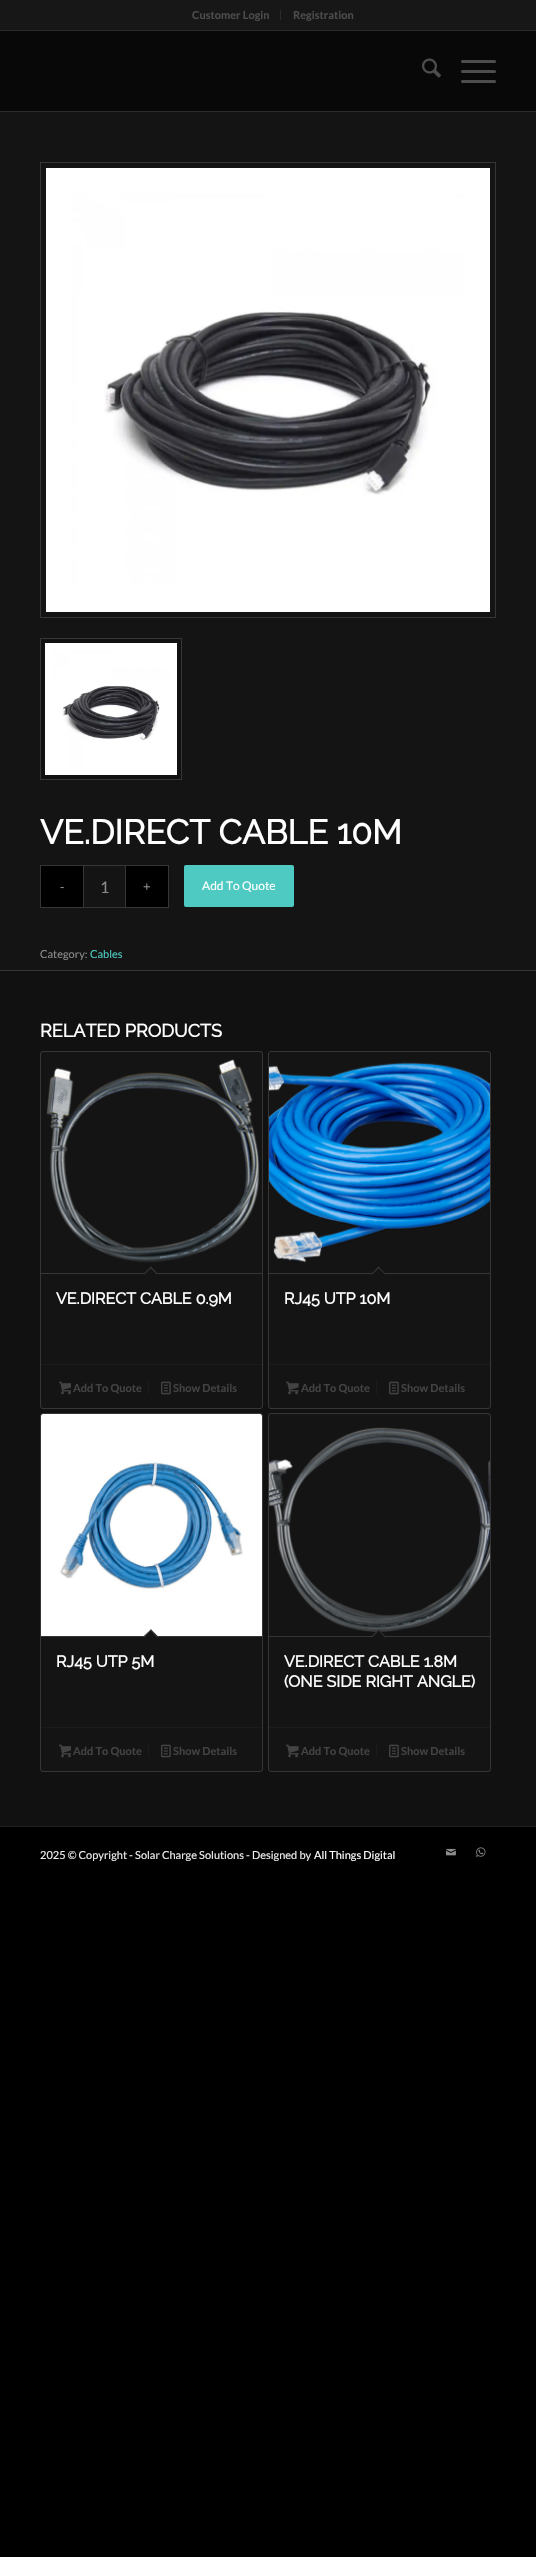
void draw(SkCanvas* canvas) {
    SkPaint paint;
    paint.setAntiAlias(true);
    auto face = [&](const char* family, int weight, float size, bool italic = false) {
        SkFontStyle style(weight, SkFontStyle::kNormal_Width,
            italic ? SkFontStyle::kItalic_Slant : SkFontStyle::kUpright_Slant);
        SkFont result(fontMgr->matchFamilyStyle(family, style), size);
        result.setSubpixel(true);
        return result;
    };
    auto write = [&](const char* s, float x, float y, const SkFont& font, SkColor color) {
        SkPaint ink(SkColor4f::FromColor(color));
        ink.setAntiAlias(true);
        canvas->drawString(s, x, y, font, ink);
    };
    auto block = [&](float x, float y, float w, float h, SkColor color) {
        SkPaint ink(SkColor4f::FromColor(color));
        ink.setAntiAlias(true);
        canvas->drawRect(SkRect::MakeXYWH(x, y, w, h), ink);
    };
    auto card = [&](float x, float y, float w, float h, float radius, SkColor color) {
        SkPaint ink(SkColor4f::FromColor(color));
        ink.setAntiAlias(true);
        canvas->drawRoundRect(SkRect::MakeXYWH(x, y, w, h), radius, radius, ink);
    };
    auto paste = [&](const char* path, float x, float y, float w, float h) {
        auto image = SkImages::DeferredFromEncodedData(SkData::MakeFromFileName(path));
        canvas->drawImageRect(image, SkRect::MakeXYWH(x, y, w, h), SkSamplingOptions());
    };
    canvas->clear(SK_ColorBLACK);
    block(0, 0, 536, 30, SkColorSetRGB(23, 23, 23));
    block(0, 30, 536, 1, SkColorSetRGB(43, 43, 43));
    block(280, 10, 1, 10, SkColorSetRGB(43, 43, 43));
    auto kFont1 = face("Lato", 700, 11);
    write("Customer Login", 192, 19, kFont1, SkColorSetRGB(77, 77, 77));
    write("Registration", 293, 19, kFont1, SkColorSetRGB(77, 77, 77));
    block(0, 31, 536, 80, SkColorSetRGB(8, 8, 8));
    block(0, 111, 536, 1, SkColorSetRGB(43, 43, 43));
    paste("pic1.png", 422, 58, 19, 20);
    card(461, 70, 35, 3, 1.5f, SkColorSetRGB(77, 77, 77));
    card(461, 60, 35, 3, 1.5f, SkColorSetRGB(77, 77, 77));
    card(461, 80, 35, 3, 1.5f, SkColorSetRGB(77, 77, 77));
    block(0, 112, 536, 858, SkColorSetRGB(20, 20, 20));
    paint.setStyle(SkPaint::kStroke_Style);
    paint.setStrokeWidth(1);
    paint.setColor(SkColorSetRGB(54, 54, 54));
    canvas->drawRect(SkRect::MakeXYWH(40.5f, 162.5f, 455, 455), paint);
    paste("pic2.png", 46, 168, 444, 444);
    paint.setStyle(SkPaint::kFill_Style);
    paint.setColor(SkColorSetRGB(17, 17, 17));
    canvas->drawRect(SkRect::MakeXYWH(40.5f, 638.5f, 141, 141), paint);
    paint.setStyle(SkPaint::kStroke_Style);
    paint.setColor(SkColorSetRGB(54, 54, 54));
    canvas->drawRect(SkRect::MakeXYWH(40.5f, 638.5f, 141, 141), paint);
    paste("pic3.png", 45, 643, 132, 132);
    auto kFont2 = face("Raleway", 700, 34);
    write("VE.DIRECT CABLE 10M", 40, 844, kFont2, SK_ColorWHITE);
    block(41, 866, 42, 41, SK_ColorBLACK);
    auto kFont3 = face("Liberation Sans", 400, 13);
    write("-", 60, 891, kFont3, SkColorSetRGB(140, 140, 140));
    block(40, 865, 43, 1, SkColorSetRGB(54, 54, 54));
    block(40, 907, 43, 1, SkColorSetRGB(54, 54, 54));
    block(40, 865, 1, 43, SkColorSetRGB(54, 54, 54));
    canvas->drawRect(SkRect::MakeXYWH(83.5f, 865.5f, 42, 42), paint);
    auto kFont4 = face("Lato", 400, 16);
    write("1", 100, 893, kFont4, SkColorSetRGB(140, 140, 140));
    block(126, 866, 42, 41, SK_ColorBLACK);
    write("+", 143, 891, kFont3, SkColorSetRGB(140, 140, 140));
    block(126, 865, 43, 1, SkColorSetRGB(54, 54, 54));
    block(168, 865, 1, 43, SkColorSetRGB(54, 54, 54));
    block(126, 907, 43, 1, SkColorSetRGB(54, 54, 54));
    card(184, 865, 110, 42, 2, SkColorSetRGB(78, 202, 194));
    auto kFont5 = face("Lato", 400, 12);
    write("Add To Quote", 202, 890, kFont5, SK_ColorWHITE);
    auto kFont6 = face("Lato", 400, 11);
    write("Category:", 40, 958, kFont6, SkColorSetRGB(140, 140, 140));
    write("Cables", 90, 958, kFont6, SkColorSetRGB(78, 202, 194));
    block(0, 971, 536, 855, SkColorSetRGB(17, 17, 17));
    block(0, 970, 536, 1, SkColorSetRGB(54, 54, 54));
    auto kFont7 = face("Raleway", 700, 18);
    write("RELATED PRODUCTS", 40, 1037, kFont7, SK_ColorWHITE);
    paint.setStyle(SkPaint::kFill_Style);
    paint.setColor(SkColorSetRGB(20, 20, 20));
    canvas->drawRoundRect(SkRect::MakeXYWH(40.5f, 1051.5f, 222, 357), 2.5f, 2.5f, paint);
    paint.setStyle(SkPaint::kStroke_Style);
    paint.setColor(SkColorSetRGB(54, 54, 54));
    canvas->drawRoundRect(SkRect::MakeXYWH(40.5f, 1051.5f, 222, 357), 2.5f, 2.5f, paint);
    paste("pic4.png", 46, 1059, 214, 204);
    block(41, 1273, 221, 1, SkColorSetRGB(54, 54, 54));
    paint.setStyle(SkPaint::kFill_Style);
    paint.setColor(SkColorSetRGB(20, 20, 20));
    canvas->drawPath(SkPathBuilder().moveTo(151, 1266.5f).lineTo(158, 1274).lineTo(151, 1281).lineTo(143.5f, 1274).close().detach(), paint);
    paint.setColor(SkColorSetRGB(54, 54, 54));
    canvas->drawPath(SkPathBuilder().moveTo(151, 1266.5f).lineTo(158, 1274).lineTo(157, 1274.5f).lineTo(150, 1267.5f).close().detach(), paint);
    canvas->drawPath(SkPathBuilder().moveTo(151, 1266.5f).lineTo(151.5f, 1267.5f).lineTo(144.5f, 1274.5f).lineTo(143.5f, 1274).close().detach(), paint);
    auto kFont8 = face("Raleway", 700, 16);
    write("VE.DIRECT CABLE 0.9M", 56, 1304, kFont8, SK_ColorWHITE);
    block(41, 1364, 221, 1, SkColorSetRGB(27, 27, 27));
    paste("pic5.png", 59, 1381, 12, 14);
    write("Add To Quote", 73, 1392, kFont1, SkColorSetRGB(67, 67, 67));
    block(148, 1380, 1, 14, SkColorSetRGB(27, 27, 27));
    paste("pic6.png", 161, 1381, 10, 14);
    write("Show Details", 173, 1392, kFont1, SkColorSetRGB(67, 67, 67));
    paint.setColor(SkColorSetRGB(20, 20, 20));
    canvas->drawRoundRect(SkRect::MakeXYWH(268.5f, 1051.5f, 222, 357), 2.5f, 2.5f, paint);
    paint.setStyle(SkPaint::kStroke_Style);
    paint.setColor(SkColorSetRGB(54, 54, 54));
    canvas->drawRoundRect(SkRect::MakeXYWH(268.5f, 1051.5f, 222, 357), 2.5f, 2.5f, paint);
    paste("pic7.png", 269, 1062, 221, 201);
    block(269, 1273, 221, 1, SkColorSetRGB(54, 54, 54));
    paint.setStyle(SkPaint::kFill_Style);
    paint.setColor(SkColorSetRGB(20, 20, 20));
    canvas->drawPath(SkPathBuilder().moveTo(378.5f, 1266.5f).lineTo(385.5f, 1274).lineTo(378.5f, 1281).lineTo(371.5f, 1274).close().detach(), paint);
    paint.setColor(SkColorSetRGB(54, 54, 54));
    canvas->drawPath(SkPathBuilder().moveTo(378.5f, 1266.5f).lineTo(385.5f, 1274).lineTo(385, 1274.5f).lineTo(378, 1267.5f).close().detach(), paint);
    canvas->drawPath(SkPathBuilder().moveTo(378.5f, 1266.5f).lineTo(379.5f, 1267.5f).lineTo(372, 1274.5f).lineTo(371.5f, 1274).close().detach(), paint);
    write("RJ45 UTP 10M", 284, 1304, kFont8, SK_ColorWHITE);
    block(269, 1364, 221, 1, SkColorSetRGB(27, 27, 27));
    paste("pic8.png", 286, 1381, 13, 14);
    write("Add To Quote", 301, 1392, kFont1, SkColorSetRGB(67, 67, 67));
    block(376, 1380, 1, 14, SkColorSetRGB(27, 27, 27));
    paste("pic6.png", 389, 1381, 10, 14);
    write("Show Details", 401, 1392, kFont1, SkColorSetRGB(67, 67, 67));
    paint.setColor(SkColorSetRGB(20, 20, 20));
    canvas->drawRoundRect(SkRect::MakeXYWH(40.5f, 1413.5f, 222, 358), 2.5f, 2.5f, paint);
    paint.setStyle(SkPaint::kStroke_Style);
    paint.setColor(SkColorSetRGB(54, 54, 54));
    canvas->drawRoundRect(SkRect::MakeXYWH(40.5f, 1413.5f, 222, 358), 2.5f, 2.5f, paint);
    paste("pic9.png", 41, 1414, 221, 222);
    block(41, 1636, 221, 1, SkColorSetRGB(54, 54, 54));
    paint.setStyle(SkPaint::kFill_Style);
    paint.setColor(SkColorSetRGB(20, 20, 20));
    canvas->drawPath(SkPathBuilder().moveTo(151, 1629.5f).lineTo(158, 1636.5f).lineTo(151, 1643.5f).lineTo(143.5f, 1636.5f).close().detach(), paint);
    paint.setColor(SkColorSetRGB(54, 54, 54));
    canvas->drawPath(SkPathBuilder().moveTo(151, 1629.5f).lineTo(158, 1636.5f).lineTo(157, 1637.5f).lineTo(150, 1630).close().detach(), paint);
    canvas->drawPath(SkPathBuilder().moveTo(151, 1629.5f).lineTo(151.5f, 1630).lineTo(144.5f, 1637.5f).lineTo(143.5f, 1636.5f).close().detach(), paint);
    write("RJ45 UTP 5M", 56, 1667, kFont8, SK_ColorWHITE);
    block(41, 1727, 221, 1, SkColorSetRGB(27, 27, 27));
    paste("pic5.png", 59, 1744, 12, 14);
    write("Add To Quote", 73, 1755, kFont1, SkColorSetRGB(67, 67, 67));
    block(148, 1743, 1, 14, SkColorSetRGB(27, 27, 27));
    paste("pic6.png", 161, 1744, 10, 14);
    write("Show Details", 173, 1755, kFont1, SkColorSetRGB(67, 67, 67));
    paint.setColor(SkColorSetRGB(20, 20, 20));
    canvas->drawRoundRect(SkRect::MakeXYWH(268.5f, 1413.5f, 222, 358), 2.5f, 2.5f, paint);
    paint.setStyle(SkPaint::kStroke_Style);
    paint.setColor(SkColorSetRGB(54, 54, 54));
    canvas->drawRoundRect(SkRect::MakeXYWH(268.5f, 1413.5f, 222, 358), 2.5f, 2.5f, paint);
    paste("pic10.png", 269, 1427, 221, 205);
    block(269, 1636, 221, 1, SkColorSetRGB(54, 54, 54));
    paint.setStyle(SkPaint::kFill_Style);
    paint.setColor(SkColorSetRGB(20, 20, 20));
    canvas->drawPath(SkPathBuilder().moveTo(378.5f, 1629.5f).lineTo(385.5f, 1636.5f).lineTo(378.5f, 1643.5f).lineTo(371.5f, 1636.5f).close().detach(), paint);
    paint.setColor(SkColorSetRGB(54, 54, 54));
    canvas->drawPath(SkPathBuilder().moveTo(378.5f, 1629.5f).lineTo(385.5f, 1636.5f).lineTo(385, 1637.5f).lineTo(378, 1630).close().detach(), paint);
    canvas->drawPath(SkPathBuilder().moveTo(378.5f, 1629.5f).lineTo(379.5f, 1630).lineTo(372, 1637.5f).lineTo(371.5f, 1636.5f).close().detach(), paint);
    write("VE.DIRECT CABLE 1.8M", 284, 1667, kFont8, SK_ColorWHITE);
    write("(ONE SIDE RIGHT ANGLE)", 284, 1687, kFont8, SK_ColorWHITE);
    block(269, 1727, 221, 1, SkColorSetRGB(27, 27, 27));
    paste("pic8.png", 286, 1744, 13, 14);
    write("Add To Quote", 301, 1755, kFont1, SkColorSetRGB(67, 67, 67));
    block(376, 1743, 1, 14, SkColorSetRGB(27, 27, 27));
    paste("pic6.png", 389, 1744, 10, 14);
    write("Show Details", 401, 1755, kFont1, SkColorSetRGB(67, 67, 67));
    block(0, 1826, 536, 1, SkColorSetRGB(34, 34, 34));
    write("2025 © Copyright - Solar Charge Solutions - Designed by", 40, 1859, kFont6, SkColorSetRGB(238, 238, 238));
    write("All Things Digital", 314, 1859, kFont6, SK_ColorWHITE);
    paste("pic11.png", 446, 1848, 10, 8);
    paste("pic12.png", 476, 1847, 10, 10);
}
